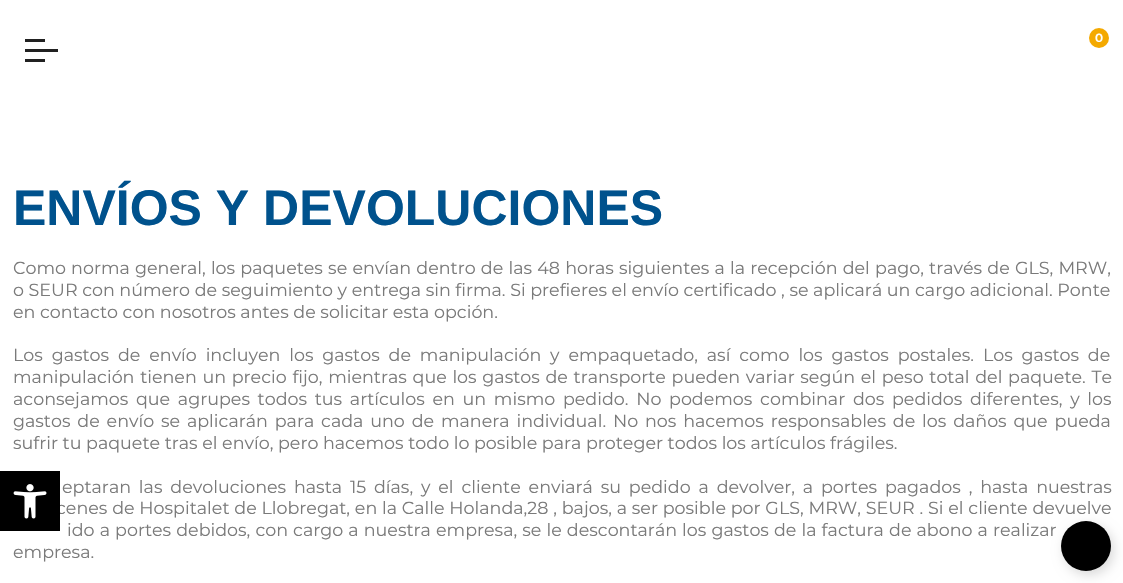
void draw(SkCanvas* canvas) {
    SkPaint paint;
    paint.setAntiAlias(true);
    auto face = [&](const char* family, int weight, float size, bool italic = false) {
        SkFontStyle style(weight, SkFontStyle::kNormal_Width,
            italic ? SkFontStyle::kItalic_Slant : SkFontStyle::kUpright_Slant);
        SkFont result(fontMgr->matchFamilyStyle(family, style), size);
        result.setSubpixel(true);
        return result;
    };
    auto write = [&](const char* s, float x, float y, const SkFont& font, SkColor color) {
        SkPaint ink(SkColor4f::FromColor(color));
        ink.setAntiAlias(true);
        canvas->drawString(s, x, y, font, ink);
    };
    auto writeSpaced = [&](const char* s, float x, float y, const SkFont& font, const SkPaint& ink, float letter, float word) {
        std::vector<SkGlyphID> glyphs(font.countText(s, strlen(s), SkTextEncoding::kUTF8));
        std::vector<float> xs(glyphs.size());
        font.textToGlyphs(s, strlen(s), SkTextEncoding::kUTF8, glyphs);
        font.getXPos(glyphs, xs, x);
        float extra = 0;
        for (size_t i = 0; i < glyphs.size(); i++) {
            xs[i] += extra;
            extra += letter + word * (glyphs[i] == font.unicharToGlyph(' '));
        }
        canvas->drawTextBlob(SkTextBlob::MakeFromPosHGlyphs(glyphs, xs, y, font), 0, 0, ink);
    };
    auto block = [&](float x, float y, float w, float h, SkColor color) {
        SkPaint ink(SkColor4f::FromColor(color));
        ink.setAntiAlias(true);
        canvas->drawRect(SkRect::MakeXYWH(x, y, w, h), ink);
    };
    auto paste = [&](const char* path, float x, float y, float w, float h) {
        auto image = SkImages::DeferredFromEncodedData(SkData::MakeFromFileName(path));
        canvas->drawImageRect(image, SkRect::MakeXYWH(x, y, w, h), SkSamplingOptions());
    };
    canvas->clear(SK_ColorWHITE);
    paint.setColor(SkColorSetRGB(244, 169, 0));
    canvas->drawCircle(1099, 38, 10, paint);
    auto kFont1 = face("Montserrat", 600, 12);
    write("0", 1095, 42, kFont1, SK_ColorWHITE);
    block(25, 39, 20, 3, SkColorSetRGB(33, 33, 33));
    block(25, 49, 33, 3, SkColorSetRGB(33, 33, 33));
    block(25, 59, 20, 3, SkColorSetRGB(33, 33, 33));
    auto kFont2 = face("Montserrat", 400, 17.5f);
    paint.setColor(SkColorSetRGB(122, 122, 122));
    writeSpaced("cenes de Hospitalet de Llobregat, en la Calle Holanda,28 , bajos, a ser posible por GLS, MRW, SEUR . Si el cliente devuelve", 56, 514, kFont2, paint, 0, 0.2f);
    block(0, 471, 60, 60, SK_ColorBLACK);
    paste("pic1.png", 13, 484, 34, 35);
    auto kFont3 = face("Liberation Sans", 700, 50);
    write("ENVÍOS Y DEVOLUCIONES", 13, 225, kFont3, SkColorSetRGB(0, 82, 141));
    writeSpaced("Como norma general, los paquetes se envían dentro de las 48 horas siguientes a la recepción del pago, través de GLS, MRW,", 13, 274, kFont2, paint, 0, 0.6f);
    write("o SEUR con número de seguimiento y entrega sin firma. Si prefieres el envío certificado , se aplicará un cargo adicional. Ponte", 13, 296, kFont2, SkColorSetRGB(122, 122, 122));
    write("en contacto con nosotros antes de solicitar esta opción.", 13, 318, kFont2, SkColorSetRGB(122, 122, 122));
    writeSpaced("Los gastos de envío incluyen los gastos de manipulación y empaquetado, así como los gastos postales. Los gastos de", 13, 361, kFont2, paint, 0, 4.25f);
    writeSpaced("manipulación tienen un precio fijo, mientras que los gastos de transporte pueden variar según el peso total del paquete. Te", 13, 383, kFont2, paint, 0, 1.1f);
    writeSpaced("aconsejamos que agrupes todos tus artículos en un mismo pedido. No podemos combinar dos pedidos diferentes, y los", 13, 405, kFont2, paint, 0, 3.1f);
    writeSpaced("gastos de envío se aplicarán para cada uno de manera individual. No nos hacemos responsables de los daños que pueda", 13, 427, kFont2, paint, 0, 2.25f);
    write("sufrir tu paquete tras el envío, pero hacemos todo lo posible para proteger todos los artículos frágiles.", 13, 449, kFont2, SkColorSetRGB(122, 122, 122));
    writeSpaced("eptaran las devoluciones hasta 15 días, y el cliente enviará su pedido a devolver, a portes pagados , hasta nuestras", 62, 493, kFont2, paint, 0, 3.25f);
    writeSpaced("ido a portes debidos, con cargo a nuestra empresa, se le descontarán los gastos de la factura de abono a realizar", 67, 536, kFont2, paint, 0, 0.5f);
    write("empresa.", 13, 558, kFont2, SkColorSetRGB(122, 122, 122));
    paint.setColor(SkColorSetARGB(38, 0, 0, 0));
    paint.setMaskFilter(SkMaskFilter::MakeBlur(kNormal_SkBlurStyle, 6));
    canvas->drawRoundRect(SkRect::MakeXYWH(1064, 525, 50, 50), 25, 25, paint);
    paint.setMaskFilter(nullptr);
    paint.setColor(SK_ColorBLACK);
    canvas->drawCircle(1086, 546, 25, paint);
}
